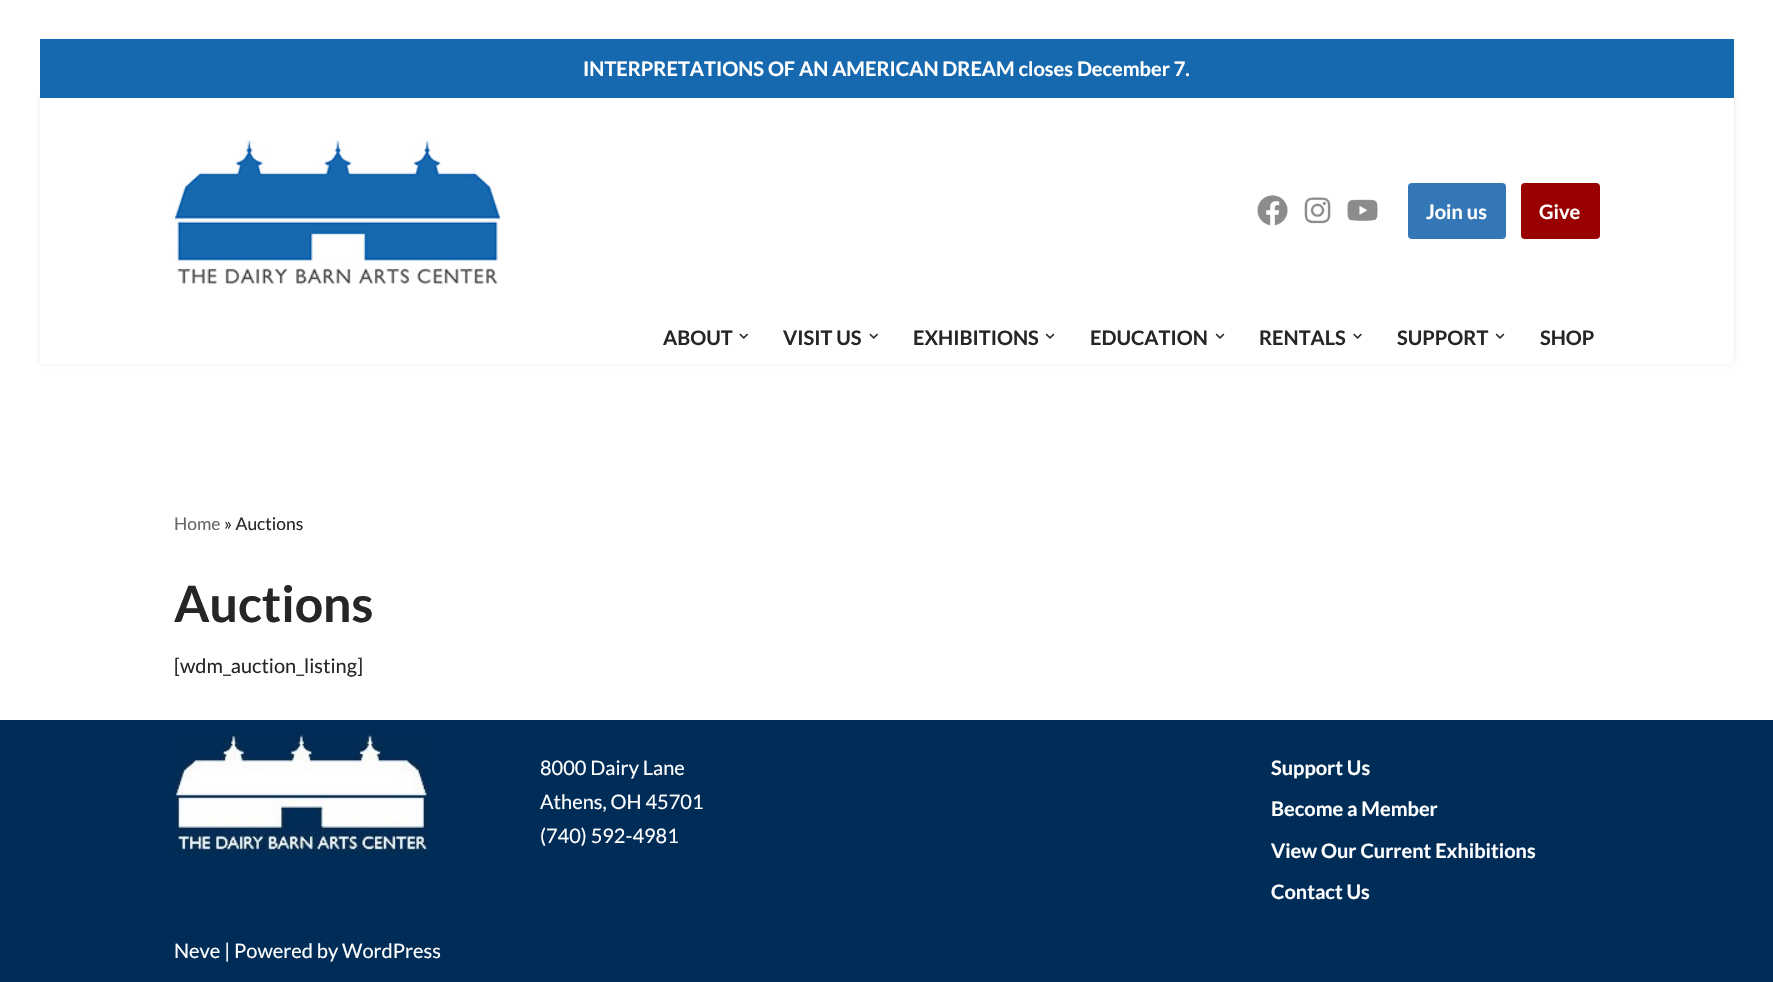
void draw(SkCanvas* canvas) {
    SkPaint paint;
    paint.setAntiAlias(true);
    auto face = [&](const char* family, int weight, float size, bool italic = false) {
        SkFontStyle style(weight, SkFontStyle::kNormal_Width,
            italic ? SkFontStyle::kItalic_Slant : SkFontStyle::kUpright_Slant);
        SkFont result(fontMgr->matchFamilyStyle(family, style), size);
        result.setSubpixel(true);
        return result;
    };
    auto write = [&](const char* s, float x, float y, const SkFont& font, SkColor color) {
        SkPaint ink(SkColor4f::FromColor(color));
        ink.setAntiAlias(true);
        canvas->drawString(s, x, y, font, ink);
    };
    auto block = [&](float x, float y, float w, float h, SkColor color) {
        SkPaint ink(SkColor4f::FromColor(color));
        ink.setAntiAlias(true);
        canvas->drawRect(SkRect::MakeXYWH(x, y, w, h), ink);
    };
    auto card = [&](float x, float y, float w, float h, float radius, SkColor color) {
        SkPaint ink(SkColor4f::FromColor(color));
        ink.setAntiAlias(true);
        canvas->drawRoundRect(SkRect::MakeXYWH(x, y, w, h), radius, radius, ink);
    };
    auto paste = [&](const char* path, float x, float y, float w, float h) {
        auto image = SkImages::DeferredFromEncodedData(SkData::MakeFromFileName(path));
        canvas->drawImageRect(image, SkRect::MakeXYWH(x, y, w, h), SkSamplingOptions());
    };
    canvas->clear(SK_ColorWHITE);
    paint.setColor(SkColorSetARGB(26, 0, 0, 0));
    paint.setMaskFilter(SkMaskFilter::MakeBlur(kNormal_SkBlurStyle, 2));
    canvas->drawRect(SkRect::MakeXYWH(40, 96, 1694, 267), paint);
    paint.setMaskFilter(nullptr);
    block(40, 39, 1694, 59, SkColorSetRGB(22, 104, 175));
    auto kFont1 = face("Lato", 700, 20);
    write("INTERPRETATIONS OF AN AMERICAN DREAM closes December 7.", 583, 76, kFont1, SK_ColorWHITE);
    block(40, 98, 1694, 266, SK_ColorWHITE);
    paste("pic1.png", 175, 140, 325, 145);
    paste("pic2.png", 1257, 195, 31, 31);
    paste("pic3.png", 1304, 197, 27, 27);
    paste("pic4.png", 1347, 199, 31, 22);
    card(1408, 183, 98, 56, 4, SkColorSetRGB(52, 119, 183));
    write("Join us", 1426, 219, kFont1, SK_ColorWHITE);
    card(1521, 183, 79, 56, 4, SkColorSetRGB(153, 0, 0));
    write("Give", 1539, 219, kFont1, SK_ColorWHITE);
    write("ABOUT", 663, 345, kFont1, SkColorSetRGB(39, 38, 38));
    paste("pic5.png", 739, 333, 9, 6);
    write("VISIT US", 783, 345, kFont1, SkColorSetRGB(39, 38, 38));
    paste("pic5.png", 869, 333, 9, 6);
    write("EXHIBITIONS", 913, 345, kFont1, SkColorSetRGB(39, 38, 38));
    paste("pic6.png", 1045, 333, 10, 6);
    write("EDUCATION", 1090, 345, kFont1, SkColorSetRGB(39, 38, 38));
    paste("pic6.png", 1215, 333, 10, 6);
    write("RENTALS", 1259, 345, kFont1, SkColorSetRGB(39, 38, 38));
    paste("pic7.png", 1353, 333, 9, 6);
    write("SUPPORT", 1397, 345, kFont1, SkColorSetRGB(39, 38, 38));
    paste("pic6.png", 1495, 333, 10, 6);
    write("SHOP", 1540, 345, kFont1, SkColorSetRGB(39, 38, 38));
    auto kFont2 = face("Lato", 400, 17.5f);
    write("Home", 174, 530, kFont2, SkColorSetRGB(103, 103, 103));
    write("» Auctions", 224, 530, kFont2, SkColorSetRGB(39, 38, 38));
    auto kFont3 = face("Lato", 700, 50);
    write("Auctions", 174, 622, kFont3, SkColorSetRGB(39, 38, 38));
    auto kFont4 = face("Lato", 400, 20);
    write("[wdm_auction_listing]", 174, 673, kFont4, SkColorSetRGB(39, 38, 38));
    block(0, 720, 1773, 262, SkColorSetRGB(0, 45, 88));
    paste("pic8.png", 175, 735, 254, 121);
    write("8000 Dairy Lane", 540, 775, kFont4, SK_ColorWHITE);
    write("Athens, OH 45701", 540, 809, kFont4, SK_ColorWHITE);
    write("(740) 592-4981", 540, 843, kFont4, SK_ColorWHITE);
    write("Support Us", 1271, 775, kFont1, SK_ColorWHITE);
    write("Become a Member", 1271, 816, kFont1, SK_ColorWHITE);
    write("View Our Current Exhibitions", 1271, 858, kFont1, SK_ColorWHITE);
    write("Contact Us", 1271, 899, kFont1, SK_ColorWHITE);
    write("Neve | Powered by WordPress", 174, 958, kFont4, SK_ColorWHITE);
}
